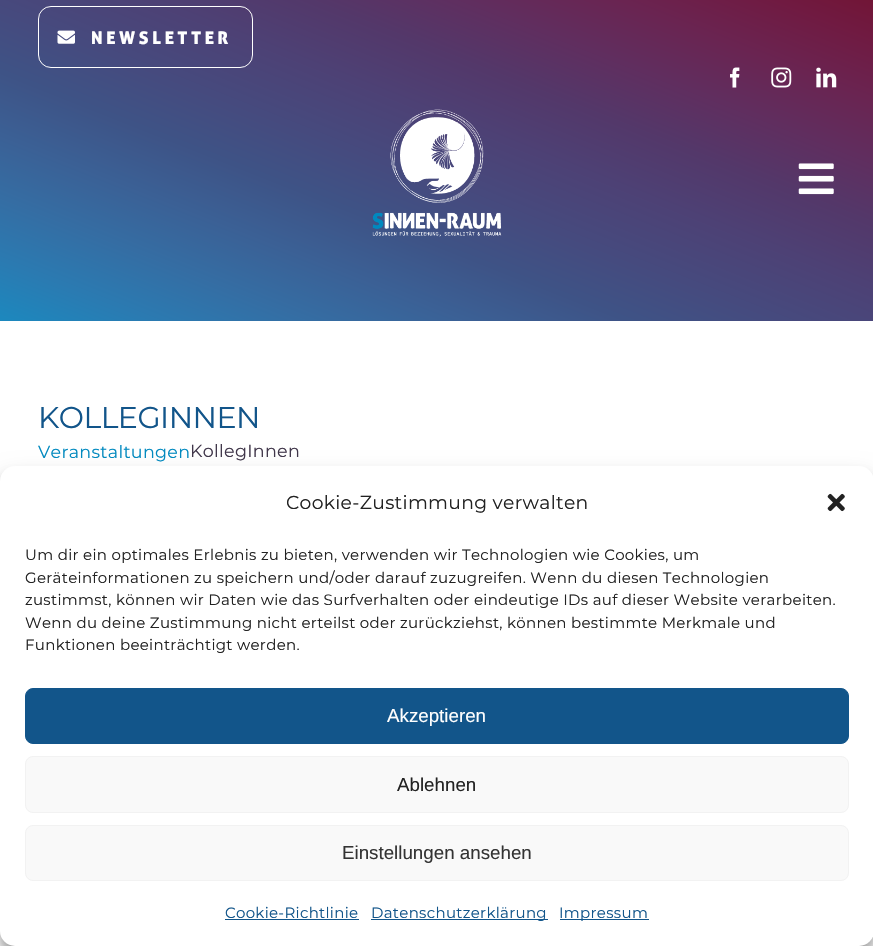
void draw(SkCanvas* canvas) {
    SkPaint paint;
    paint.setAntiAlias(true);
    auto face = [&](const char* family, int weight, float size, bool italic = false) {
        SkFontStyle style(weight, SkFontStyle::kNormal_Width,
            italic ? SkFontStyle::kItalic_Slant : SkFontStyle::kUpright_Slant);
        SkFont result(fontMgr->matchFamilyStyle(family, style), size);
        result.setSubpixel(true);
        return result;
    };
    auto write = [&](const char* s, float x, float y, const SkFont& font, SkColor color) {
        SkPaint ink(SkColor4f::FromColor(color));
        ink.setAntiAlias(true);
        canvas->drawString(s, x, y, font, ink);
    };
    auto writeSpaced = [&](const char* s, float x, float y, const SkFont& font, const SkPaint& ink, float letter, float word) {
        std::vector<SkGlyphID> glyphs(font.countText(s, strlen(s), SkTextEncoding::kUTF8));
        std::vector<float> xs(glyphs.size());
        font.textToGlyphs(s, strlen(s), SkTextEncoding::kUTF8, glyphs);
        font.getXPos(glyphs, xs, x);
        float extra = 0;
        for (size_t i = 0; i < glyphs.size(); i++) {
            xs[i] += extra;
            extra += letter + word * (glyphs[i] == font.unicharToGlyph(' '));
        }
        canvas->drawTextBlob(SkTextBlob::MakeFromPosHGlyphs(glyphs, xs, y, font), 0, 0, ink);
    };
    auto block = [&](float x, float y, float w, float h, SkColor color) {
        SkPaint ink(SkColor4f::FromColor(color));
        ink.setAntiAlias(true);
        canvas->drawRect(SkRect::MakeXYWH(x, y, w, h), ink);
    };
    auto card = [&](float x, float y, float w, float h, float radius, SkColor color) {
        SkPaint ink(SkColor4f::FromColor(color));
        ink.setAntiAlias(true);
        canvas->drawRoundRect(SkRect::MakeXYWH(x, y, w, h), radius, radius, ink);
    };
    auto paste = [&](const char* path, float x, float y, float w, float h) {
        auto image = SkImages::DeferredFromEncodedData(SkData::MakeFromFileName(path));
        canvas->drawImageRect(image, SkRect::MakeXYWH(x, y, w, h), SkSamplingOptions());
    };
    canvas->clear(SK_ColorWHITE);
    {
        const SkColor colors[] = {SkColorSetRGB(28, 136, 190), SkColorSetRGB(43, 122, 177), SkColorSetRGB(53, 109, 163), SkColorSetRGB(59, 96, 149), SkColorSetRGB(62, 83, 134), SkColorSetRGB(70, 74, 126), SkColorSetRGB(77, 65, 117), SkColorSetRGB(83, 56, 106), SkColorSetRGB(96, 46, 95), SkColorSetRGB(106, 36, 81), SkColorSetRGB(112, 26, 65), SkColorSetRGB(114, 18, 47)};
        const float stops[] = {0, 0.09f, 0.18f, 0.27f, 0.36f, 0.45f, 0.55f, 0.64f, 0.73f, 0.82f, 0.91f, 1};
        const SkPoint ends[] = {{318, 447}, {555, -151}};
        paint.setShader(SkGradientShader::MakeLinear(ends, colors, stops, 12, SkTileMode::kClamp));
        paint.setAlpha(255);
    }
    canvas->drawRect(SkRect::MakeXYWH(0, 0, 873, 321), paint);
    paint.setStyle(SkPaint::kStroke_Style);
    paint.setStrokeWidth(1);
    paint.setShader(nullptr);
    paint.setColor(SK_ColorWHITE);
    canvas->drawRoundRect(SkRect::MakeXYWH(38.5f, 6.5f, 214, 61), 12.5f, 12.5f, paint);
    paste("pic1.png", 57, 30, 18, 14);
    auto kFont1 = face("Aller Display", 400, 17.5f);
    paint.setStyle(SkPaint::kFill_Style);
    writeSpaced("NEWSLETTER", 91, 44, kFont1, paint, 3.75f, 0);
    paste("pic2.png", 730, 67, 10, 21);
    paste("pic3.png", 771, 67, 21, 21);
    paste("pic4.png", 816, 67, 21, 21);
    paste("pic5.png", 372, 109, 130, 128);
    paste("pic6.png", 798, 163, 36, 32);
    auto kFont2 = face("Montserrat", 400, 30);
    paint.setColor(SkColorSetRGB(18, 85, 138));
    writeSpaced("KOLLEGINNEN", 38, 428, kFont2, paint, -0.5f, 0);
    auto kFont3 = face("Montserrat", 400, 17.5f);
    paint.setColor(SkColorSetRGB(2, 138, 192));
    writeSpaced("Veranstaltungen", 38, 458, kFont3, paint, 0.31f, 0);
    paint.setColor(SkColorSetRGB(64, 54, 74));
    writeSpaced("KollegInnen", 190, 457, kFont3, paint, 0.31f, 0);
    paint.setColor(SkColorSetARGB(59, 0, 0, 0));
    paint.setMaskFilter(SkMaskFilter::MakeBlur(kNormal_SkBlurStyle, 4));
    canvas->drawRoundRect(SkRect::MakeXYWH(0, 474, 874, 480), 15, 15, paint);
    paint.setMaskFilter(nullptr);
    paint.setColor(SkColorSetARGB(48, 0, 0, 0));
    paint.setMaskFilter(SkMaskFilter::MakeBlur(kNormal_SkBlurStyle, 12.5f));
    canvas->drawRoundRect(SkRect::MakeXYWH(0, 479, 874, 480), 15, 15, paint);
    paint.setMaskFilter(nullptr);
    card(0, 466, 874, 480, 15, SK_ColorWHITE);
    auto kFont4 = face("Montserrat", 400, 18.75f);
    paint.setColor(SkColorSetRGB(34, 34, 34));
    writeSpaced("Cookie-Zustimmung verwalten", 286, 509, kFont4, paint, 0.31f, 0);
    paste("pic7.png", 827, 493, 18, 19);
    auto kFont5 = face("Montserrat", 400, 15);
    writeSpaced("Um dir ein optimales Erlebnis zu bieten, verwenden wir Technologien wie Cookies, um", 25, 560, kFont5, paint, 0.31f, 0);
    writeSpaced("Geräteinformationen zu speichern und/oder darauf zuzugreifen. Wenn du diesen Technologien", 25, 583, kFont5, paint, 0.31f, 0);
    writeSpaced("zustimmst, können wir Daten wie das Surfverhalten oder eindeutige IDs auf dieser Website verarbeiten.", 25, 605, kFont5, paint, 0.31f, 0);
    writeSpaced("Wenn du deine Zustimmung nicht erteilst oder zurückziehst, können bestimmte Merkmale und", 25, 628, kFont5, paint, 0.31f, 0);
    writeSpaced("Funktionen beeinträchtigt werden.", 25, 650, kFont5, paint, 0.31f, 0);
    paint.setColor(SkColorSetRGB(18, 85, 138));
    canvas->drawRoundRect(SkRect::MakeXYWH(25.5f, 688.5f, 823, 55), 7.5f, 7.5f, paint);
    paint.setStyle(SkPaint::kStroke_Style);
    canvas->drawRoundRect(SkRect::MakeXYWH(25.5f, 688.5f, 823, 55), 7.5f, 7.5f, paint);
    auto kFont6 = face("Liberation Sans", 400, 18.75f);
    write("Akzeptieren", 387, 722, kFont6, SK_ColorWHITE);
    paint.setStyle(SkPaint::kFill_Style);
    paint.setColor(SkColorSetRGB(249, 249, 249));
    canvas->drawRoundRect(SkRect::MakeXYWH(25.5f, 756.5f, 823, 56), 7.5f, 7.5f, paint);
    paint.setStyle(SkPaint::kStroke_Style);
    paint.setColor(SkColorSetRGB(242, 242, 242));
    canvas->drawRoundRect(SkRect::MakeXYWH(25.5f, 756.5f, 823, 56), 7.5f, 7.5f, paint);
    write("Ablehnen", 397, 791, kFont6, SkColorSetRGB(34, 34, 34));
    paint.setStyle(SkPaint::kFill_Style);
    paint.setColor(SkColorSetRGB(249, 249, 249));
    canvas->drawRoundRect(SkRect::MakeXYWH(25.5f, 825.5f, 823, 55), 7.5f, 7.5f, paint);
    paint.setStyle(SkPaint::kStroke_Style);
    paint.setColor(SkColorSetRGB(242, 242, 242));
    canvas->drawRoundRect(SkRect::MakeXYWH(25.5f, 825.5f, 823, 55), 7.5f, 7.5f, paint);
    write("Einstellungen ansehen", 342, 859, kFont6, SkColorSetRGB(51, 51, 51));
    paint.setStyle(SkPaint::kFill_Style);
    paint.setColor(SkColorSetRGB(18, 85, 138));
    writeSpaced("Cookie-Richtlinie", 225, 918, kFont5, paint, 0.31f, 0);
    block(225, 919, 134, 1, SkColorSetRGB(18, 85, 138));
    block(371, 919, 177, 1, SkColorSetRGB(18, 85, 138));
    writeSpaced("Datenschutzerklärung", 371, 918, kFont5, paint, 0.31f, 0);
    block(560, 919, 89, 1, SkColorSetRGB(18, 85, 138));
    writeSpaced("Impressum", 559, 918, kFont5, paint, 0.31f, 0);
}
